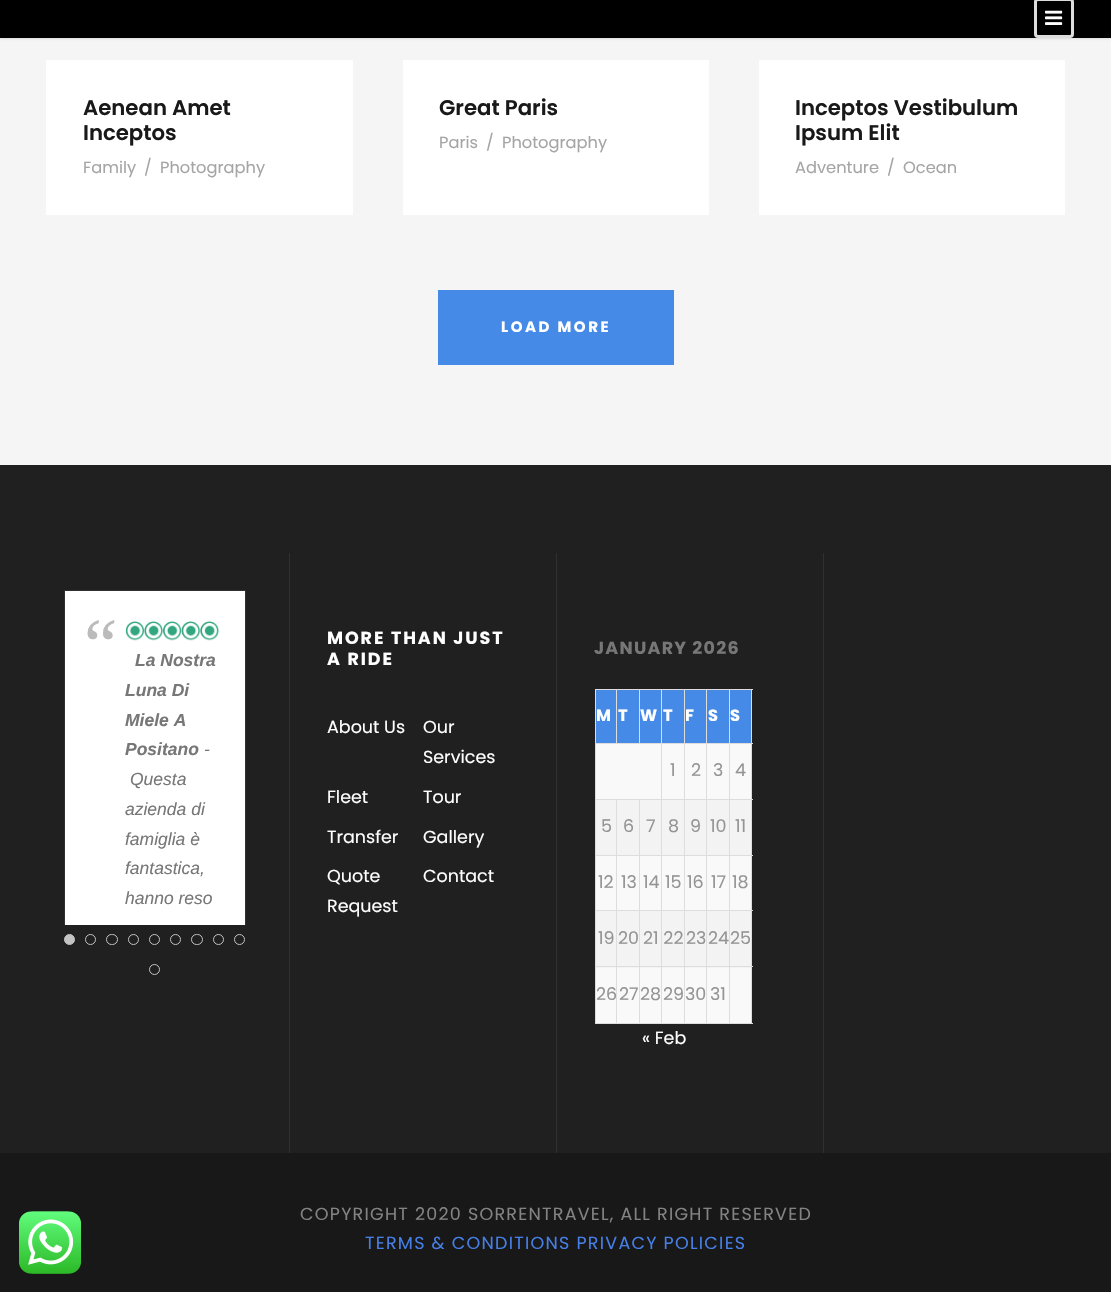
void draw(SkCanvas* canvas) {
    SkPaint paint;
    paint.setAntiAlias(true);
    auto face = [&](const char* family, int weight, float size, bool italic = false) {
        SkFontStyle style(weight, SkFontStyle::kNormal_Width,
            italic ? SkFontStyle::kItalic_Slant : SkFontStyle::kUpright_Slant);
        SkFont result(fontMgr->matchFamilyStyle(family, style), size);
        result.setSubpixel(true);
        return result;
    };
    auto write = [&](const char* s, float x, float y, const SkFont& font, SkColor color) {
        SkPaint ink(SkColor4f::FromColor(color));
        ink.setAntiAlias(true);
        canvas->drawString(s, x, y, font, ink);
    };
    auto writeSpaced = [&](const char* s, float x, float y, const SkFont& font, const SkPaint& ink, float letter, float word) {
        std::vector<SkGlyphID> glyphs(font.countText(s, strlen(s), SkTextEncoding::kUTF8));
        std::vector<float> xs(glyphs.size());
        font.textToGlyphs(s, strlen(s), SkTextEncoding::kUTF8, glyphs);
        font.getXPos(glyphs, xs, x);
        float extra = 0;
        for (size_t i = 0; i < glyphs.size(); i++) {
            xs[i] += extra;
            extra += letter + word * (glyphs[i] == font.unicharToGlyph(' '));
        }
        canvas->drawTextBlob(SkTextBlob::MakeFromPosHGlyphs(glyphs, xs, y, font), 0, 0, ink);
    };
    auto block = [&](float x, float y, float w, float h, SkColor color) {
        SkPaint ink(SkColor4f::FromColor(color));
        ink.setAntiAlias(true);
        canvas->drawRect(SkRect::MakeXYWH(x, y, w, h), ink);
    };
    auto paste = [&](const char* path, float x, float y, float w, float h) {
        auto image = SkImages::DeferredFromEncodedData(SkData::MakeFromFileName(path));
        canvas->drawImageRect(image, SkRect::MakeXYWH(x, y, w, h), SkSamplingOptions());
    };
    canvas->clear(SkColorSetRGB(32, 32, 32));
    block(0, 38, 1111, 427, SkColorSetRGB(245, 245, 245));
    paint.setColor(SkColorSetARGB(26, 0, 0, 0));
    paint.setMaskFilter(SkMaskFilter::MakeBlur(kNormal_SkBlurStyle, 1));
    canvas->drawRect(SkRect::MakeXYWH(0, 1, 1111, 38), paint);
    paint.setMaskFilter(nullptr);
    block(0, 0, 1111, 38, SK_ColorBLACK);
    paint.setStyle(SkPaint::kStroke_Style);
    paint.setStrokeWidth(3);
    paint.setColor(SkColorSetRGB(221, 221, 221));
    canvas->drawRoundRect(SkRect::MakeXYWH(1035.5f, -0.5f, 37, 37), 2.5f, 2.5f, paint);
    paste("pic1.png", 1045, 10, 18, 15);
    block(65, 591, 180, 334, SK_ColorWHITE);
    paint.setStyle(SkPaint::kFill_Style);
    paint.setColor(SkColorSetRGB(195, 195, 195));
    canvas->drawCircle(69.5f, 939.5f, 5, paint);
    paint.setStyle(SkPaint::kStroke_Style);
    paint.setStrokeWidth(1);
    canvas->drawCircle(69.5f, 939.5f, 5, paint);
    canvas->drawCircle(90.5f, 939.5f, 5, paint);
    canvas->drawRoundRect(SkRect::MakeXYWH(106.5f, 934.5f, 11, 10), 5, 5, paint);
    canvas->drawCircle(133.5f, 939.5f, 5, paint);
    canvas->drawCircle(154.5f, 939.5f, 5, paint);
    canvas->drawCircle(175.5f, 939.5f, 5, paint);
    canvas->drawRoundRect(SkRect::MakeXYWH(191.5f, 934.5f, 11, 10), 5, 5, paint);
    canvas->drawCircle(218.5f, 939.5f, 5, paint);
    canvas->drawCircle(239.5f, 939.5f, 5, paint);
    canvas->drawCircle(154.5f, 969.5f, 5, paint);
    block(0, 1153, 1111, 139, SkColorSetRGB(24, 24, 24));
    canvas->save();
    canvas->clipRect(SkRect::MakeXYWH(59, 578, 192, 347));
    paint.setColor(SkColorSetRGB(48, 48, 48));
    canvas->drawRect(SkRect::MakeXYWH(64.5f, 590.5f, 181, 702), paint);
    canvas->restore();
    paste("pic2.png", 19, 1211, 62, 63);
    block(46, 60, 307, 155, SK_ColorWHITE);
    auto kFont1 = face("Poppins", 600, 21.25f);
    write("Aenean Amet", 83, 115, kFont1, SkColorSetRGB(25, 25, 25));
    write("Inceptos", 83, 140, kFont1, SkColorSetRGB(25, 25, 25));
    auto kFont2 = face("Poppins", 400, 16.25f);
    write("Family", 83, 173, kFont2, SkColorSetRGB(165, 165, 165));
    write("/", 144, 173, kFont2, SkColorSetRGB(165, 165, 165));
    write("Photography", 160, 173, kFont2, SkColorSetRGB(165, 165, 165));
    block(403, 60, 306, 155, SK_ColorWHITE);
    write("Great Paris", 439, 115, kFont1, SkColorSetRGB(25, 25, 25));
    write("Paris", 439, 148, kFont2, SkColorSetRGB(165, 165, 165));
    write("/", 486, 148, kFont2, SkColorSetRGB(165, 165, 165));
    write("Photography", 502, 148, kFont2, SkColorSetRGB(165, 165, 165));
    block(759, 60, 306, 155, SK_ColorWHITE);
    write("Inceptos Vestibulum", 795, 115, kFont1, SkColorSetRGB(25, 25, 25));
    write("Ipsum Elit", 795, 140, kFont1, SkColorSetRGB(25, 25, 25));
    write("Adventure", 795, 173, kFont2, SkColorSetRGB(165, 165, 165));
    write("/", 887, 173, kFont2, SkColorSetRGB(165, 165, 165));
    write("Ocean", 903, 173, kFont2, SkColorSetRGB(165, 165, 165));
    block(438, 290, 236, 75, SkColorSetRGB(70, 138, 231));
    auto kFont3 = face("Poppins", 700, 15);
    paint.setStyle(SkPaint::kFill_Style);
    paint.setColor(SK_ColorWHITE);
    writeSpaced("LOAD MORE", 501, 332, kFont3, paint, 2.5f, 0);
    auto kFont4 = face("Liberation Serif", 400, 75);
    write("“", 84, 670, kFont4, SkColorSetRGB(187, 187, 187));
    paste("pic3.png", 125, 621, 94, 20);
    auto kFont5 = face("Liberation Sans", 700, 17.5f, true);
    write("La Nostra", 135, 666, kFont5, SkColorSetRGB(119, 119, 119));
    write("Luna Di", 125, 696, kFont5, SkColorSetRGB(119, 119, 119));
    write("Miele A", 125, 726, kFont5, SkColorSetRGB(119, 119, 119));
    write("Positano", 125, 755, kFont5, SkColorSetRGB(119, 119, 119));
    auto kFont6 = face("Liberation Sans", 400, 17.5f, true);
    write("-", 204, 755, kFont6, SkColorSetRGB(119, 119, 119));
    write("Questa", 130, 785, kFont6, SkColorSetRGB(119, 119, 119));
    write("azienda di", 125, 815, kFont6, SkColorSetRGB(119, 119, 119));
    write("famiglia è", 125, 845, kFont6, SkColorSetRGB(119, 119, 119));
    write("fantastica,", 125, 874, kFont6, SkColorSetRGB(119, 119, 119));
    write("hanno reso", 125, 904, kFont6, SkColorSetRGB(119, 119, 119));
    block(289, 553, 1, 600, SkColorSetRGB(48, 48, 48));
    auto kFont7 = face("Poppins", 700, 17.5f);
    writeSpaced("MORE THAN JUST", 327, 644, kFont7, paint, 1.9f, 0);
    writeSpaced("A RIDE", 327, 665, kFont7, paint, 1.9f, 0);
    auto kFont8 = face("Poppins", 400, 17.5f);
    write("About Us", 327, 733, kFont8, SK_ColorWHITE);
    write("Our", 423, 733, kFont8, SK_ColorWHITE);
    write("Services", 423, 763, kFont8, SK_ColorWHITE);
    write("Fleet", 327, 803, kFont8, SK_ColorWHITE);
    write("Tour", 423, 803, kFont8, SK_ColorWHITE);
    write("Transfer", 327, 843, kFont8, SK_ColorWHITE);
    write("Gallery", 423, 843, kFont8, SK_ColorWHITE);
    write("Quote", 327, 882, kFont8, SK_ColorWHITE);
    write("Request", 327, 912, kFont8, SK_ColorWHITE);
    write("Contact", 423, 882, kFont8, SK_ColorWHITE);
    block(556, 553, 1, 600, SkColorSetRGB(48, 48, 48));
    paint.setColor(SkColorSetRGB(119, 119, 119));
    writeSpaced("JANUARY 2026", 594, 654, kFont7, paint, 1.25f, 0);
    block(596, 690, 43, 53, SkColorSetRGB(70, 138, 231));
    block(729, 689, 24, 1, SkColorSetRGB(221, 221, 221));
    block(729, 743, 24, 1, SkColorSetRGB(221, 221, 221));
    block(596, 744, 155, 55, SkColorSetRGB(249, 249, 249));
    block(729, 799, 24, 1, SkColorSetRGB(221, 221, 221));
    block(596, 800, 155, 55, SkColorSetRGB(243, 243, 243));
    block(729, 855, 24, 1, SkColorSetRGB(221, 221, 221));
    block(596, 856, 155, 54, SkColorSetRGB(249, 249, 249));
    block(729, 910, 24, 1, SkColorSetRGB(221, 221, 221));
    block(596, 911, 155, 57, SkColorSetRGB(243, 243, 243));
    block(729, 966, 24, 1, SkColorSetRGB(221, 221, 221));
    block(596, 968, 155, 55, SkColorSetRGB(249, 249, 249));
    block(751, 966, 1, 58, SkColorSetRGB(221, 221, 221));
    block(729, 1023, 24, 1, SkColorSetRGB(221, 221, 221));
    block(729, 966, 1, 58, SkColorSetRGB(221, 221, 221));
    block(706, 966, 24, 1, SkColorSetRGB(221, 221, 221));
    block(729, 910, 1, 58, SkColorSetRGB(221, 221, 221));
    block(706, 910, 24, 1, SkColorSetRGB(221, 221, 221));
    block(729, 855, 1, 56, SkColorSetRGB(221, 221, 221));
    block(706, 855, 24, 1, SkColorSetRGB(221, 221, 221));
    block(729, 799, 1, 57, SkColorSetRGB(221, 221, 221));
    block(706, 799, 24, 1, SkColorSetRGB(221, 221, 221));
    block(729, 743, 1, 57, SkColorSetRGB(221, 221, 221));
    block(706, 743, 24, 1, SkColorSetRGB(221, 221, 221));
    block(729, 689, 1, 55, SkColorSetRGB(221, 221, 221));
    block(706, 689, 24, 1, SkColorSetRGB(221, 221, 221));
    block(685, 690, 44, 53, SkColorSetRGB(70, 138, 231));
    block(706, 1023, 24, 1, SkColorSetRGB(221, 221, 221));
    block(706, 966, 1, 58, SkColorSetRGB(221, 221, 221));
    block(684, 966, 24, 1, SkColorSetRGB(221, 221, 221));
    block(706, 910, 1, 58, SkColorSetRGB(221, 221, 221));
    block(684, 910, 24, 1, SkColorSetRGB(221, 221, 221));
    block(706, 855, 1, 56, SkColorSetRGB(221, 221, 221));
    block(684, 855, 24, 1, SkColorSetRGB(221, 221, 221));
    block(706, 799, 1, 57, SkColorSetRGB(221, 221, 221));
    block(684, 799, 24, 1, SkColorSetRGB(221, 221, 221));
    block(706, 743, 1, 57, SkColorSetRGB(221, 221, 221));
    block(684, 743, 24, 1, SkColorSetRGB(221, 221, 221));
    block(706, 689, 1, 55, SkColorSetRGB(221, 221, 221));
    block(684, 689, 24, 1, SkColorSetRGB(221, 221, 221));
    block(684, 1023, 24, 1, SkColorSetRGB(221, 221, 221));
    block(684, 966, 1, 58, SkColorSetRGB(221, 221, 221));
    block(661, 966, 24, 1, SkColorSetRGB(221, 221, 221));
    block(684, 910, 1, 58, SkColorSetRGB(221, 221, 221));
    block(661, 910, 24, 1, SkColorSetRGB(221, 221, 221));
    block(684, 855, 1, 56, SkColorSetRGB(221, 221, 221));
    block(661, 855, 24, 1, SkColorSetRGB(221, 221, 221));
    block(684, 799, 1, 57, SkColorSetRGB(221, 221, 221));
    block(661, 799, 24, 1, SkColorSetRGB(221, 221, 221));
    block(684, 743, 1, 57, SkColorSetRGB(221, 221, 221));
    block(661, 743, 24, 1, SkColorSetRGB(221, 221, 221));
    block(684, 689, 1, 55, SkColorSetRGB(221, 221, 221));
    block(661, 689, 24, 1, SkColorSetRGB(221, 221, 221));
    block(640, 690, 44, 53, SkColorSetRGB(70, 138, 231));
    block(661, 1023, 24, 1, SkColorSetRGB(221, 221, 221));
    block(661, 966, 1, 58, SkColorSetRGB(221, 221, 221));
    block(639, 966, 24, 1, SkColorSetRGB(221, 221, 221));
    block(661, 910, 1, 58, SkColorSetRGB(221, 221, 221));
    block(639, 910, 24, 1, SkColorSetRGB(221, 221, 221));
    block(661, 855, 1, 56, SkColorSetRGB(221, 221, 221));
    block(639, 855, 24, 1, SkColorSetRGB(221, 221, 221));
    block(661, 799, 1, 57, SkColorSetRGB(221, 221, 221));
    block(639, 799, 24, 1, SkColorSetRGB(221, 221, 221));
    block(661, 743, 1, 57, SkColorSetRGB(221, 221, 221));
    block(595, 743, 68, 1, SkColorSetRGB(221, 221, 221));
    block(661, 689, 1, 55, SkColorSetRGB(221, 221, 221));
    block(639, 689, 24, 1, SkColorSetRGB(221, 221, 221));
    block(639, 689, 1, 55, SkColorSetRGB(221, 221, 221));
    block(616, 689, 24, 1, SkColorSetRGB(221, 221, 221));
    block(616, 689, 1, 55, SkColorSetRGB(221, 221, 221));
    block(595, 689, 23, 1, SkColorSetRGB(221, 221, 221));
    block(639, 1023, 24, 1, SkColorSetRGB(221, 221, 221));
    block(639, 966, 1, 58, SkColorSetRGB(221, 221, 221));
    block(616, 966, 24, 1, SkColorSetRGB(221, 221, 221));
    block(639, 910, 1, 58, SkColorSetRGB(221, 221, 221));
    block(616, 910, 24, 1, SkColorSetRGB(221, 221, 221));
    block(639, 855, 1, 56, SkColorSetRGB(221, 221, 221));
    block(616, 855, 24, 1, SkColorSetRGB(221, 221, 221));
    block(639, 799, 1, 57, SkColorSetRGB(221, 221, 221));
    block(616, 799, 24, 1, SkColorSetRGB(221, 221, 221));
    block(616, 1023, 24, 1, SkColorSetRGB(221, 221, 221));
    block(616, 966, 1, 58, SkColorSetRGB(221, 221, 221));
    block(595, 966, 23, 1, SkColorSetRGB(221, 221, 221));
    block(616, 910, 1, 58, SkColorSetRGB(221, 221, 221));
    block(595, 910, 23, 1, SkColorSetRGB(221, 221, 221));
    block(616, 855, 1, 56, SkColorSetRGB(221, 221, 221));
    block(595, 855, 23, 1, SkColorSetRGB(221, 221, 221));
    block(616, 799, 1, 57, SkColorSetRGB(221, 221, 221));
    block(595, 799, 23, 1, SkColorSetRGB(221, 221, 221));
    block(595, 1023, 23, 1, SkColorSetRGB(221, 221, 221));
    block(595, 966, 1, 58, SkColorSetRGB(221, 221, 221));
    block(595, 910, 1, 58, SkColorSetRGB(221, 221, 221));
    block(595, 855, 1, 56, SkColorSetRGB(221, 221, 221));
    block(595, 799, 1, 57, SkColorSetRGB(221, 221, 221));
    block(595, 743, 1, 57, SkColorSetRGB(221, 221, 221));
    block(595, 689, 1, 55, SkColorSetRGB(221, 221, 221));
    auto kFont9 = face("Poppins", 700, 16.25f);
    write("M", 596, 721, kFont9, SK_ColorWHITE);
    write("T", 618, 721, kFont9, SK_ColorWHITE);
    write("W", 640, 721, kFont9, SK_ColorWHITE);
    write("T", 663, 721, kFont9, SK_ColorWHITE);
    write("F", 685, 721, kFont9, SK_ColorWHITE);
    write("S", 708, 721, kFont9, SK_ColorWHITE);
    block(730, 690, 21, 53, SkColorSetRGB(70, 138, 231));
    block(751, 910, 1, 58, SkColorSetRGB(221, 221, 221));
    block(751, 855, 1, 56, SkColorSetRGB(221, 221, 221));
    block(751, 799, 1, 57, SkColorSetRGB(221, 221, 221));
    block(751, 743, 1, 57, SkColorSetRGB(221, 221, 221));
    block(751, 689, 1, 55, SkColorSetRGB(221, 221, 221));
    write("S", 730, 721, kFont9, SK_ColorWHITE);
    write("1", 670, 776, kFont8, SkColorSetRGB(148, 148, 148));
    write("2", 691, 776, kFont8, SkColorSetRGB(148, 148, 148));
    write("3", 713, 776, kFont8, SkColorSetRGB(148, 148, 148));
    write("4", 735, 776, kFont8, SkColorSetRGB(148, 148, 148));
    write("5", 601, 832, kFont8, SkColorSetRGB(148, 148, 148));
    write("6", 623, 832, kFont8, SkColorSetRGB(148, 148, 148));
    write("7", 646, 832, kFont8, SkColorSetRGB(148, 148, 148));
    write("8", 668, 832, kFont8, SkColorSetRGB(148, 148, 148));
    write("9", 690, 832, kFont8, SkColorSetRGB(148, 148, 148));
    write("10", 710, 832, kFont8, SkColorSetRGB(148, 148, 148));
    write("11", 735, 832, kFont8, SkColorSetRGB(148, 148, 148));
    write("12", 598, 888, kFont8, SkColorSetRGB(148, 148, 148));
    write("13", 621, 888, kFont8, SkColorSetRGB(148, 148, 148));
    write("14", 643, 888, kFont8, SkColorSetRGB(148, 148, 148));
    write("15", 665, 888, kFont8, SkColorSetRGB(148, 148, 148));
    write("16", 687, 888, kFont8, SkColorSetRGB(148, 148, 148));
    write("17", 711, 888, kFont8, SkColorSetRGB(148, 148, 148));
    write("18", 732, 888, kFont8, SkColorSetRGB(148, 148, 148));
    write("19", 598, 944, kFont8, SkColorSetRGB(148, 148, 148));
    write("20", 618, 944, kFont8, SkColorSetRGB(148, 148, 148));
    write("21 22", 643, 944, kFont8, SkColorSetRGB(148, 148, 148));
    write("23", 686, 944, kFont8, SkColorSetRGB(148, 148, 148));
    write("24", 708, 944, kFont8, SkColorSetRGB(148, 148, 148));
    write("25", 730, 944, kFont8, SkColorSetRGB(148, 148, 148));
    write("26", 596, 1000, kFont8, SkColorSetRGB(148, 148, 148));
    write("27", 619, 1000, kFont8, SkColorSetRGB(148, 148, 148));
    write("28", 640, 1000, kFont8, SkColorSetRGB(148, 148, 148));
    write("29", 663, 1000, kFont8, SkColorSetRGB(148, 148, 148));
    write("30", 685, 1000, kFont8, SkColorSetRGB(148, 148, 148));
    write("31", 710, 1000, kFont8, SkColorSetRGB(148, 148, 148));
    write("« Feb", 642, 1044, kFont8, SK_ColorWHITE);
    block(823, 553, 1, 600, SkColorSetRGB(48, 48, 48));
    paint.setColor(SkColorSetRGB(131, 131, 131));
    writeSpaced("COPYRIGHT 2020 SORRENTRAVEL, ALL RIGHT RESERVED", 300, 1220, kFont8, paint, 1.25f, 0);
    paint.setColor(SkColorSetRGB(70, 127, 231));
    writeSpaced("TERMS & CONDITIONS PRIVACY POLICIES", 365, 1249, kFont8, paint, 1.25f, 0);
}
